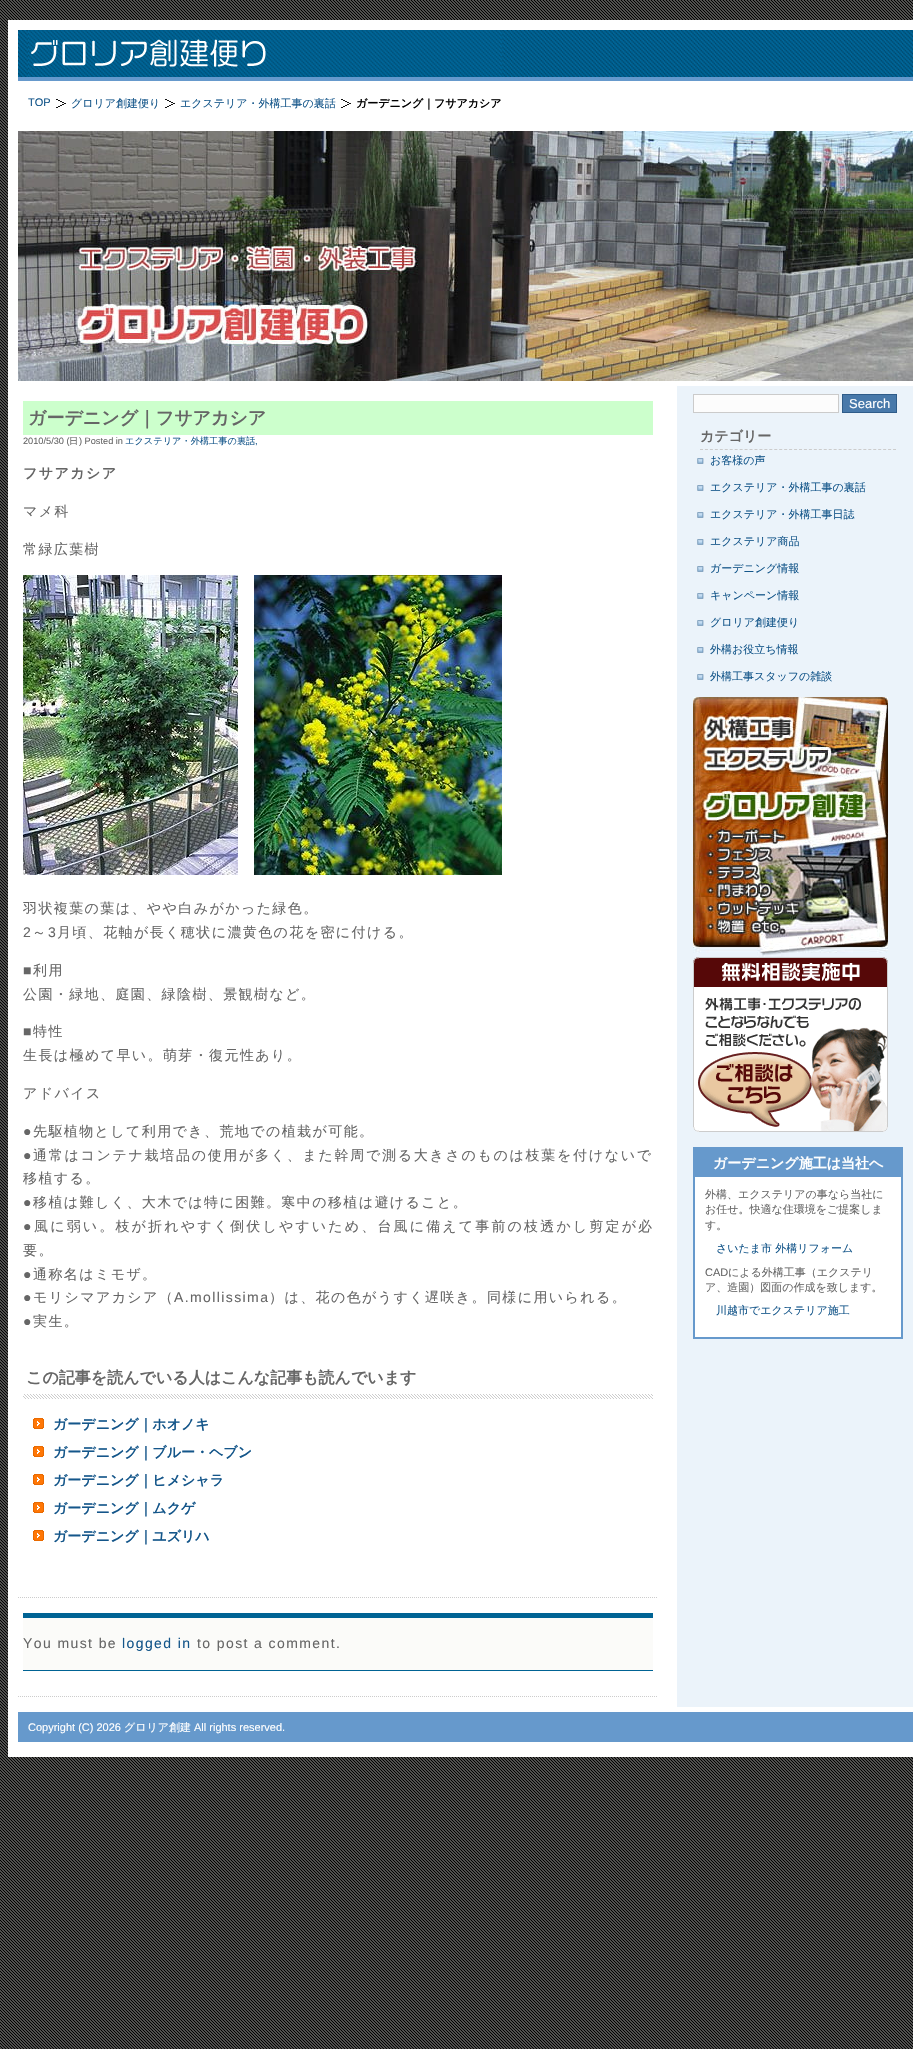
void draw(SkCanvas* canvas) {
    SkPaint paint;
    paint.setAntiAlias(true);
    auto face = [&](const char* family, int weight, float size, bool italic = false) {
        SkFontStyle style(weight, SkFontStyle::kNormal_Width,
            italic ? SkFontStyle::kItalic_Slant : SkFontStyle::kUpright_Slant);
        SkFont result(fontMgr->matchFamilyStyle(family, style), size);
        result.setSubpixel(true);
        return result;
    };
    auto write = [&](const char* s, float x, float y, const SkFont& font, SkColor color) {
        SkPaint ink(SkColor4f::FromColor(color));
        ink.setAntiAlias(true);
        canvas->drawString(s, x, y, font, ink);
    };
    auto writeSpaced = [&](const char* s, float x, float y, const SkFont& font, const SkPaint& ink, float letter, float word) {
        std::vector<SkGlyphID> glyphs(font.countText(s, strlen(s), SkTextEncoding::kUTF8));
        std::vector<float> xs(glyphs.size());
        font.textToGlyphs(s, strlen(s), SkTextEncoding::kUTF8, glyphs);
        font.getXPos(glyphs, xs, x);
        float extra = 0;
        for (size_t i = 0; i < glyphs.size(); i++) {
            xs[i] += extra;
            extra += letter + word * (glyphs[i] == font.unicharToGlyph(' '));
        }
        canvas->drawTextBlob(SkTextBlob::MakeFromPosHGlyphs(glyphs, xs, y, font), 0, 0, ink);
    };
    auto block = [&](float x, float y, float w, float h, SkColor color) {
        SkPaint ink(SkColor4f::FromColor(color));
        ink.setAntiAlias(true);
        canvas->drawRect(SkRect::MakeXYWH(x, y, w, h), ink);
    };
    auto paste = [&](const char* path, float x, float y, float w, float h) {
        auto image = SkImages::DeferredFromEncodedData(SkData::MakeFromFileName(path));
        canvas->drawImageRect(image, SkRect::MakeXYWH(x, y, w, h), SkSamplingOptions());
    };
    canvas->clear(SK_ColorWHITE);
    paste("pic1.png", 0, 0, 913, 2049);
    block(8, 20, 905, 1737, SK_ColorWHITE);
    block(18, 77, 895, 4, SkColorSetRGB(102, 153, 204));
    paste("pic2.png", 18, 30, 895, 47);
    paste("pic3.png", 28, 30, 474, 47);
    auto kFont1 = face("Liberation Sans", 400, 11);
    write("TOP", 28, 106, kFont1, SkColorSetRGB(20, 86, 138));
    paste("pic4.png", 56, 99, 10, 9);
    auto kFont2 = face("WenQuanYi Zen Hei", 500, 11);
    write("グロリア創建便り", 71, 107, kFont2, SkColorSetRGB(20, 86, 138));
    paste("pic4.png", 165, 99, 10, 9);
    write("エクステリア・外構工事の裏話", 180, 107, kFont2, SkColorSetRGB(20, 86, 138));
    paste("pic4.png", 341, 99, 10, 9);
    auto kFont3 = face("WenQuanYi Zen Hei", 700, 11);
    write("ガーデニング｜フサアカシア", 356, 107, kFont3, SK_ColorBLACK);
    paste("pic5.png", 18, 131, 895, 250);
    block(677, 386, 236, 1321, SkColorSetRGB(235, 243, 250));
    paint.setStyle(SkPaint::kStroke_Style);
    paint.setStrokeWidth(1);
    paint.setColor(SkColorSetRGB(204, 204, 204));
    paint.setPathEffect(SkDashPathEffect::Make({{1, 1}}, 0));
    canvas->drawPath(SkPathBuilder().moveTo(18, 1597.5f).lineTo(658, 1597.5f).detach(), paint);
    paint.setPathEffect(nullptr);
    block(23, 401, 630, 34, SkColorSetRGB(204, 255, 204));
    auto kFont4 = face("WenQuanYi Zen Hei", 700, 18);
    write("ガーデニング｜フサアカシア", 28, 424, kFont4, SkColorSetRGB(102, 102, 102));
    auto kFont5 = face("Liberation Sans", 400, 9.2f);
    write("2010/5/30 (", 23, 444, kFont5, SkColorSetRGB(102, 102, 102));
    auto kFont6 = face("WenQuanYi Zen Hei", 500, 9.2f);
    write("日", 69, 444, kFont6, SkColorSetRGB(102, 102, 102));
    write(") Posted in", 79, 444, kFont5, SkColorSetRGB(102, 102, 102));
    write("エクステリア・外構工事の裏話", 125, 444, kFont6, SkColorSetRGB(20, 86, 138));
    write(",", 255, 444, kFont5, SkColorSetRGB(20, 86, 138));
    auto kFont7 = face("WenQuanYi Zen Hei", 700, 14);
    paint.setStyle(SkPaint::kFill_Style);
    paint.setColor(SkColorSetRGB(102, 102, 102));
    writeSpaced("フサアカシア", 23, 478, kFont7, paint, 1.4f, 0);
    auto kFont8 = face("WenQuanYi Zen Hei", 500, 14);
    writeSpaced("マメ科", 23, 516, kFont8, paint, 1.4f, 0);
    writeSpaced("常緑広葉樹", 23, 554, kFont8, paint, 1.4f, 0);
    paste("pic6.png", 23, 575, 215, 300);
    paste("pic7.png", 254, 575, 248, 300);
    writeSpaced("羽状複葉の葉は、やや白みがかった緑色。", 23, 913, kFont8, paint, 1.4f, 0);
    auto kFont9 = face("Liberation Sans", 400, 14);
    writeSpaced("2", 23, 937, kFont9, paint, 1.4f, 0);
    writeSpaced("～", 32, 937, kFont8, paint, 1.4f, 0);
    writeSpaced("3", 48, 937, kFont9, paint, 1.4f, 0);
    writeSpaced("月頃、花軸が長く穂状に濃黄色の花を密に付ける。", 57, 937, kFont8, paint, 1.4f, 0);
    writeSpaced("■", 23, 975, kFont9, paint, 1.4f, 0);
    writeSpaced("利用", 33, 975, kFont8, paint, 1.4f, 0);
    writeSpaced("公園・緑地、庭園、緑陰樹、景観樹など。", 23, 999, kFont8, paint, 1.4f, 0);
    writeSpaced("■", 23, 1036, kFont9, paint, 1.4f, 0);
    writeSpaced("特性", 33, 1036, kFont8, paint, 1.4f, 0);
    writeSpaced("生長は極めて早い。萌芽・復元性あり。", 23, 1060, kFont8, paint, 1.4f, 0);
    writeSpaced("アドバイス", 23, 1098, kFont8, paint, 1.4f, 0);
    writeSpaced("●", 23, 1136, kFont9, paint, 1.4f, 0);
    writeSpaced("先駆植物として利用でき、荒地での植栽が可能。", 33, 1136, kFont8, paint, 1.4f, 0);
    writeSpaced("●", 23, 1160, kFont9, paint, 1.7f, 0);
    writeSpaced("通常はコンテナ栽培品の使用が多く、また幹周で測る大きさのものは枝葉を付けないで", 33, 1160, kFont8, paint, 1.7f, 0);
    writeSpaced("移植する。", 23, 1183, kFont8, paint, 1.4f, 0);
    writeSpaced("●", 23, 1207, kFont9, paint, 1.4f, 0);
    writeSpaced("移植は難しく、大木では特に困難。寒中の移植は避けること。", 33, 1207, kFont8, paint, 1.4f, 0);
    writeSpaced("●", 23, 1231, kFont9, paint, 2.15f, 0);
    writeSpaced("風に弱い。枝が折れやすく倒伏しやすいため、台風に備えて事前の枝透かし剪定が必", 34, 1231, kFont8, paint, 2.15f, 0);
    writeSpaced("要。", 23, 1255, kFont8, paint, 1.4f, 0);
    writeSpaced("●", 23, 1279, kFont9, paint, 1.4f, 0);
    writeSpaced("通称名はミモザ。", 33, 1279, kFont8, paint, 1.4f, 0);
    writeSpaced("●", 23, 1302, kFont9, paint, 1.4f, 0);
    writeSpaced("モリシマアカシア（", 33, 1302, kFont8, paint, 1.4f, 0);
    writeSpaced("A.mollissima", 174, 1302, kFont9, paint, 1.4f, 0);
    writeSpaced("）は、花の色がうすく遅咲き。同様に用いられる。", 269, 1302, kFont8, paint, 1.4f, 0);
    writeSpaced("●", 23, 1326, kFont9, paint, 1.4f, 0);
    writeSpaced("実生。", 33, 1326, kFont8, paint, 1.4f, 0);
    paste("pic8.png", 23, 1394, 630, 5);
    auto kFont10 = face("WenQuanYi Zen Hei", 700, 16);
    write("この記事を読んでいる人はこんな記事も読んでいます", 26, 1383, kFont10, SkColorSetRGB(102, 102, 102));
    paste("pic9.png", 33, 1418, 11, 11);
    write("ガーデニング｜ホオノキ", 53, 1429, kFont7, SkColorSetRGB(20, 86, 138));
    paste("pic9.png", 33, 1446, 11, 11);
    write("ガーデニング｜ブルー・ヘブン", 53, 1457, kFont7, SkColorSetRGB(20, 86, 138));
    paste("pic9.png", 33, 1474, 11, 11);
    write("ガーデニング｜ヒメシャラ", 53, 1485, kFont7, SkColorSetRGB(20, 86, 138));
    paste("pic9.png", 33, 1502, 11, 11);
    write("ガーデニング｜ムクゲ", 53, 1513, kFont7, SkColorSetRGB(20, 86, 138));
    paste("pic9.png", 33, 1530, 11, 11);
    write("ガーデニング｜ユズリハ", 53, 1541, kFont7, SkColorSetRGB(20, 86, 138));
    paint.setStyle(SkPaint::kStroke_Style);
    paint.setColor(SkColorSetRGB(204, 204, 204));
    paint.setPathEffect(SkDashPathEffect::Make({{1, 1}}, 0));
    canvas->drawPath(SkPathBuilder().moveTo(18, 1696.5f).lineTo(658, 1696.5f).detach(), paint);
    paint.setPathEffect(nullptr);
    block(23, 1618, 630, 52, SkColorSetRGB(251, 251, 249));
    block(23, 1613, 630, 5, SkColorSetRGB(0, 99, 148));
    block(23, 1670, 630, 1, SkColorSetRGB(0, 99, 148));
    paint.setStyle(SkPaint::kFill_Style);
    paint.setColor(SkColorSetRGB(102, 102, 102));
    writeSpaced("You must be", 23, 1648, kFont9, paint, 1.4f, 0);
    paint.setColor(SkColorSetRGB(20, 86, 138));
    writeSpaced("logged in", 122, 1648, kFont9, paint, 1.4f, 0);
    paint.setColor(SkColorSetRGB(102, 102, 102));
    writeSpaced("to post a comment.", 197, 1648, kFont9, paint, 1.4f, 0);
    paint.setColor(SkColorSetRGB(252, 252, 252));
    canvas->drawRect(SkRect::MakeXYWH(693.5f, 394.5f, 145, 18), paint);
    paint.setStyle(SkPaint::kStroke_Style);
    paint.setColor(SkColorSetRGB(203, 203, 203));
    canvas->drawRect(SkRect::MakeXYWH(693.5f, 394.5f, 145, 18), paint);
    paint.setStyle(SkPaint::kFill_Style);
    paint.setColor(SkColorSetRGB(72, 121, 170));
    canvas->drawRect(SkRect::MakeXYWH(842.5f, 394.5f, 54, 18), paint);
    paint.setStyle(SkPaint::kStroke_Style);
    paint.setColor(SkColorSetRGB(47, 92, 137));
    canvas->drawRect(SkRect::MakeXYWH(842.5f, 394.5f, 54, 18), paint);
    auto kFont11 = face("Liberation Sans", 400, 13);
    write("Search", 849, 408, kFont11, SK_ColorWHITE);
    paint.setColor(SkColorSetRGB(204, 204, 204));
    paint.setPathEffect(SkDashPathEffect::Make({{3, 1.95f}}, 0));
    canvas->drawPath(SkPathBuilder().moveTo(700, 449.5f).lineTo(896, 449.5f).detach(), paint);
    paint.setPathEffect(nullptr);
    write("カテゴリー", 700, 441, kFont7, SkColorSetRGB(102, 102, 102));
    paste("pic10.png", 697, 458, 7, 6);
    write("お客様の声", 710, 464, kFont2, SkColorSetRGB(20, 86, 138));
    paste("pic10.png", 697, 485, 7, 6);
    write("エクステリア・外構工事の裏話", 710, 491, kFont2, SkColorSetRGB(20, 86, 138));
    paste("pic10.png", 697, 512, 7, 6);
    write("エクステリア・外構工事日誌", 710, 518, kFont2, SkColorSetRGB(20, 86, 138));
    paste("pic10.png", 697, 539, 7, 6);
    write("エクステリア商品", 710, 545, kFont2, SkColorSetRGB(20, 86, 138));
    paste("pic10.png", 697, 566, 7, 6);
    write("ガーデニング情報", 710, 572, kFont2, SkColorSetRGB(20, 86, 138));
    paste("pic10.png", 697, 593, 7, 6);
    write("キャンペーン情報", 710, 599, kFont2, SkColorSetRGB(20, 86, 138));
    paste("pic10.png", 697, 620, 7, 6);
    write("グロリア創建便り", 710, 626, kFont2, SkColorSetRGB(20, 86, 138));
    paste("pic10.png", 697, 647, 7, 6);
    write("外構お役立ち情報", 710, 653, kFont2, SkColorSetRGB(20, 86, 138));
    paste("pic10.png", 697, 674, 7, 6);
    write("外構工事スタッフの雑談", 710, 680, kFont2, SkColorSetRGB(20, 86, 138));
    paste("pic11.png", 693, 697, 195, 260);
    paste("pic12.png", 693, 957, 195, 175);
    block(693, 1147, 210, 30, SkColorSetRGB(102, 153, 204));
    write("ガーデニング施工は当社へ", 713, 1168, kFont7, SK_ColorWHITE);
    block(695, 1177, 206, 160, SK_ColorWHITE);
    block(901, 1177, 2, 162, SkColorSetRGB(102, 153, 204));
    block(693, 1337, 210, 2, SkColorSetRGB(102, 153, 204));
    block(693, 1177, 2, 162, SkColorSetRGB(102, 153, 204));
    write("外構、エクステリアの事なら当社に", 705, 1198, kFont2, SkColorSetRGB(102, 102, 102));
    write("お任せ。快適な住環境をご提案しま", 705, 1213, kFont2, SkColorSetRGB(102, 102, 102));
    write("す。", 705, 1229, kFont2, SkColorSetRGB(102, 102, 102));
    write("さいたま市 外構リフォーム", 716, 1252, kFont2, SkColorSetRGB(20, 86, 138));
    write("CAD", 705, 1276, kFont1, SkColorSetRGB(102, 102, 102));
    write("による外構工事（エクステリ", 728, 1276, kFont2, SkColorSetRGB(102, 102, 102));
    write("ア、造園）図面の作成を致します。", 705, 1291, kFont2, SkColorSetRGB(102, 102, 102));
    write("川越市でエクステリア施工", 716, 1314, kFont2, SkColorSetRGB(20, 86, 138));
    block(18, 1712, 895, 30, SkColorSetRGB(102, 153, 204));
    write("Copyright (C) 2026", 28, 1731, kFont1, SK_ColorWHITE);
    write("グロリア創建", 124, 1731, kFont2, SK_ColorWHITE);
    write("All rights reserved.", 194, 1731, kFont1, SK_ColorWHITE);
}
